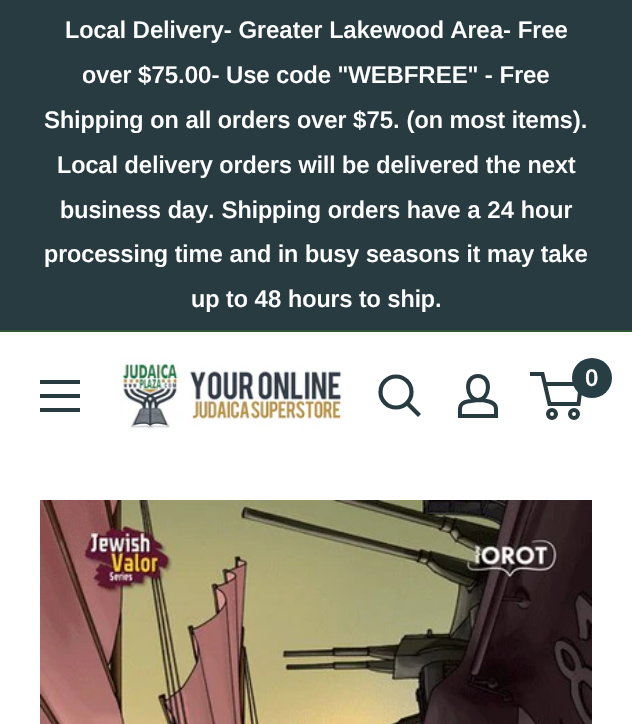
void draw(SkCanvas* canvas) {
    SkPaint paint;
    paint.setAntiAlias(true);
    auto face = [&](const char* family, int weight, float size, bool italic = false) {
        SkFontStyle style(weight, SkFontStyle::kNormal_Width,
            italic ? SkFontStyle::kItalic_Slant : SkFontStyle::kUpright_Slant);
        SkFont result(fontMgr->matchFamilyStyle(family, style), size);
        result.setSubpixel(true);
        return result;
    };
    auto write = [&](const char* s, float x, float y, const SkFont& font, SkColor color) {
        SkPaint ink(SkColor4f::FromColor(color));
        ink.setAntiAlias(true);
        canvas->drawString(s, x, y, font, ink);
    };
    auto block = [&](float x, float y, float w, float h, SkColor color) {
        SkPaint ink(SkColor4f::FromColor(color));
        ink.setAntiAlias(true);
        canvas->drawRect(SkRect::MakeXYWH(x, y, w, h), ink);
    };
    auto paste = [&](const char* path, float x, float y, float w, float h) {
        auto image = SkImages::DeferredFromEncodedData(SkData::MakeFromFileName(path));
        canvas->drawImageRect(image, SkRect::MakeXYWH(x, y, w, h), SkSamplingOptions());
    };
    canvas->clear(SkColorSetRGB(39, 59, 64));
    block(0, 330, 632, 2, SkColorSetRGB(46, 88, 49));
    auto kFont1 = face("Arimo", 600, 24);
    write("Local Delivery- Greater Lakewood Area- Free", 65, 38, kFont1, SK_ColorWHITE);
    write("over $75.00- Use code \"WEBFREE\" - Free", 82, 83, kFont1, SK_ColorWHITE);
    write("Shipping on all orders over $75. (on most items).", 44, 128, kFont1, SK_ColorWHITE);
    write("Local delivery orders will be delivered the next", 57, 173, kFont1, SK_ColorWHITE);
    write("business day. Shipping orders have a 24 hour", 60, 218, kFont1, SK_ColorWHITE);
    write("processing time and in busy seasons it may take", 44, 262, kFont1, SK_ColorWHITE);
    write("up to 48 hours to ship.", 191, 307, kFont1, SK_ColorWHITE);
    block(0, 332, 632, 392, SK_ColorWHITE);
    paste("pic1.png", 40, 500, 552, 224);
    paste("pic2.png", 120, 358, 224, 71);
    paint.setStyle(SkPaint::kStroke_Style);
    paint.setStrokeWidth(4.2f);
    paint.setStrokeCap(SkPaint::kSquare_Cap);
    paint.setColor(SkColorSetRGB(39, 59, 64));
    canvas->drawPath(SkPathBuilder().moveTo(418, 414).lineTo(407.5f, 403.5f).detach(), paint);
    paint.setStrokeCap(SkPaint::kButt_Cap);
    canvas->drawCircle(396, 392, 15.5f, paint);
    paint.setStrokeWidth(4);
    canvas->drawPath(SkPathBuilder().moveTo(478, 400).cubicTo(482, 400, 485.5f, 400.5f, 489, 401.5f).cubicTo(497.5f, 404, 496, 408.5f, 496, 416).lineTo(460, 416).cubicTo(460, 408, 458.5f, 403.5f, 467.5f, 401.5f).close().moveTo(478, 400).cubicTo(466, 400, 463.5f, 376, 478, 376).cubicTo(492.5f, 376, 490, 400, 478, 400).close().detach(), paint);
    canvas->drawCircle(552, 414, 4, paint);
    canvas->drawCircle(574, 414, 4, paint);
    canvas->drawPath(SkPathBuilder().moveTo(544.5f, 384).lineTo(581, 384).lineTo(578.5f, 404).lineTo(549.5f, 404).lineTo(542.5f, 374).lineTo(530, 374).detach(), paint);
    paint.setStyle(SkPaint::kFill_Style);
    paint.setColor(SkColorSetRGB(39, 62, 68));
    canvas->drawCircle(592, 378, 20, paint);
    write("0", 585, 386, kFont1, SK_ColorWHITE);
    paint.setColor(SkColorSetRGB(39, 59, 64));
    canvas->drawPath(SkPathBuilder(SkPathFillType::kEvenOdd).moveTo(40, 408).lineTo(80, 408).lineTo(80, 412).lineTo(40, 412).close().moveTo(40, 380).lineTo(80, 380).lineTo(80, 384).lineTo(40, 384).close().moveTo(40, 394).lineTo(80, 394).lineTo(80, 398).lineTo(40, 398).close().detach(), paint);
}
